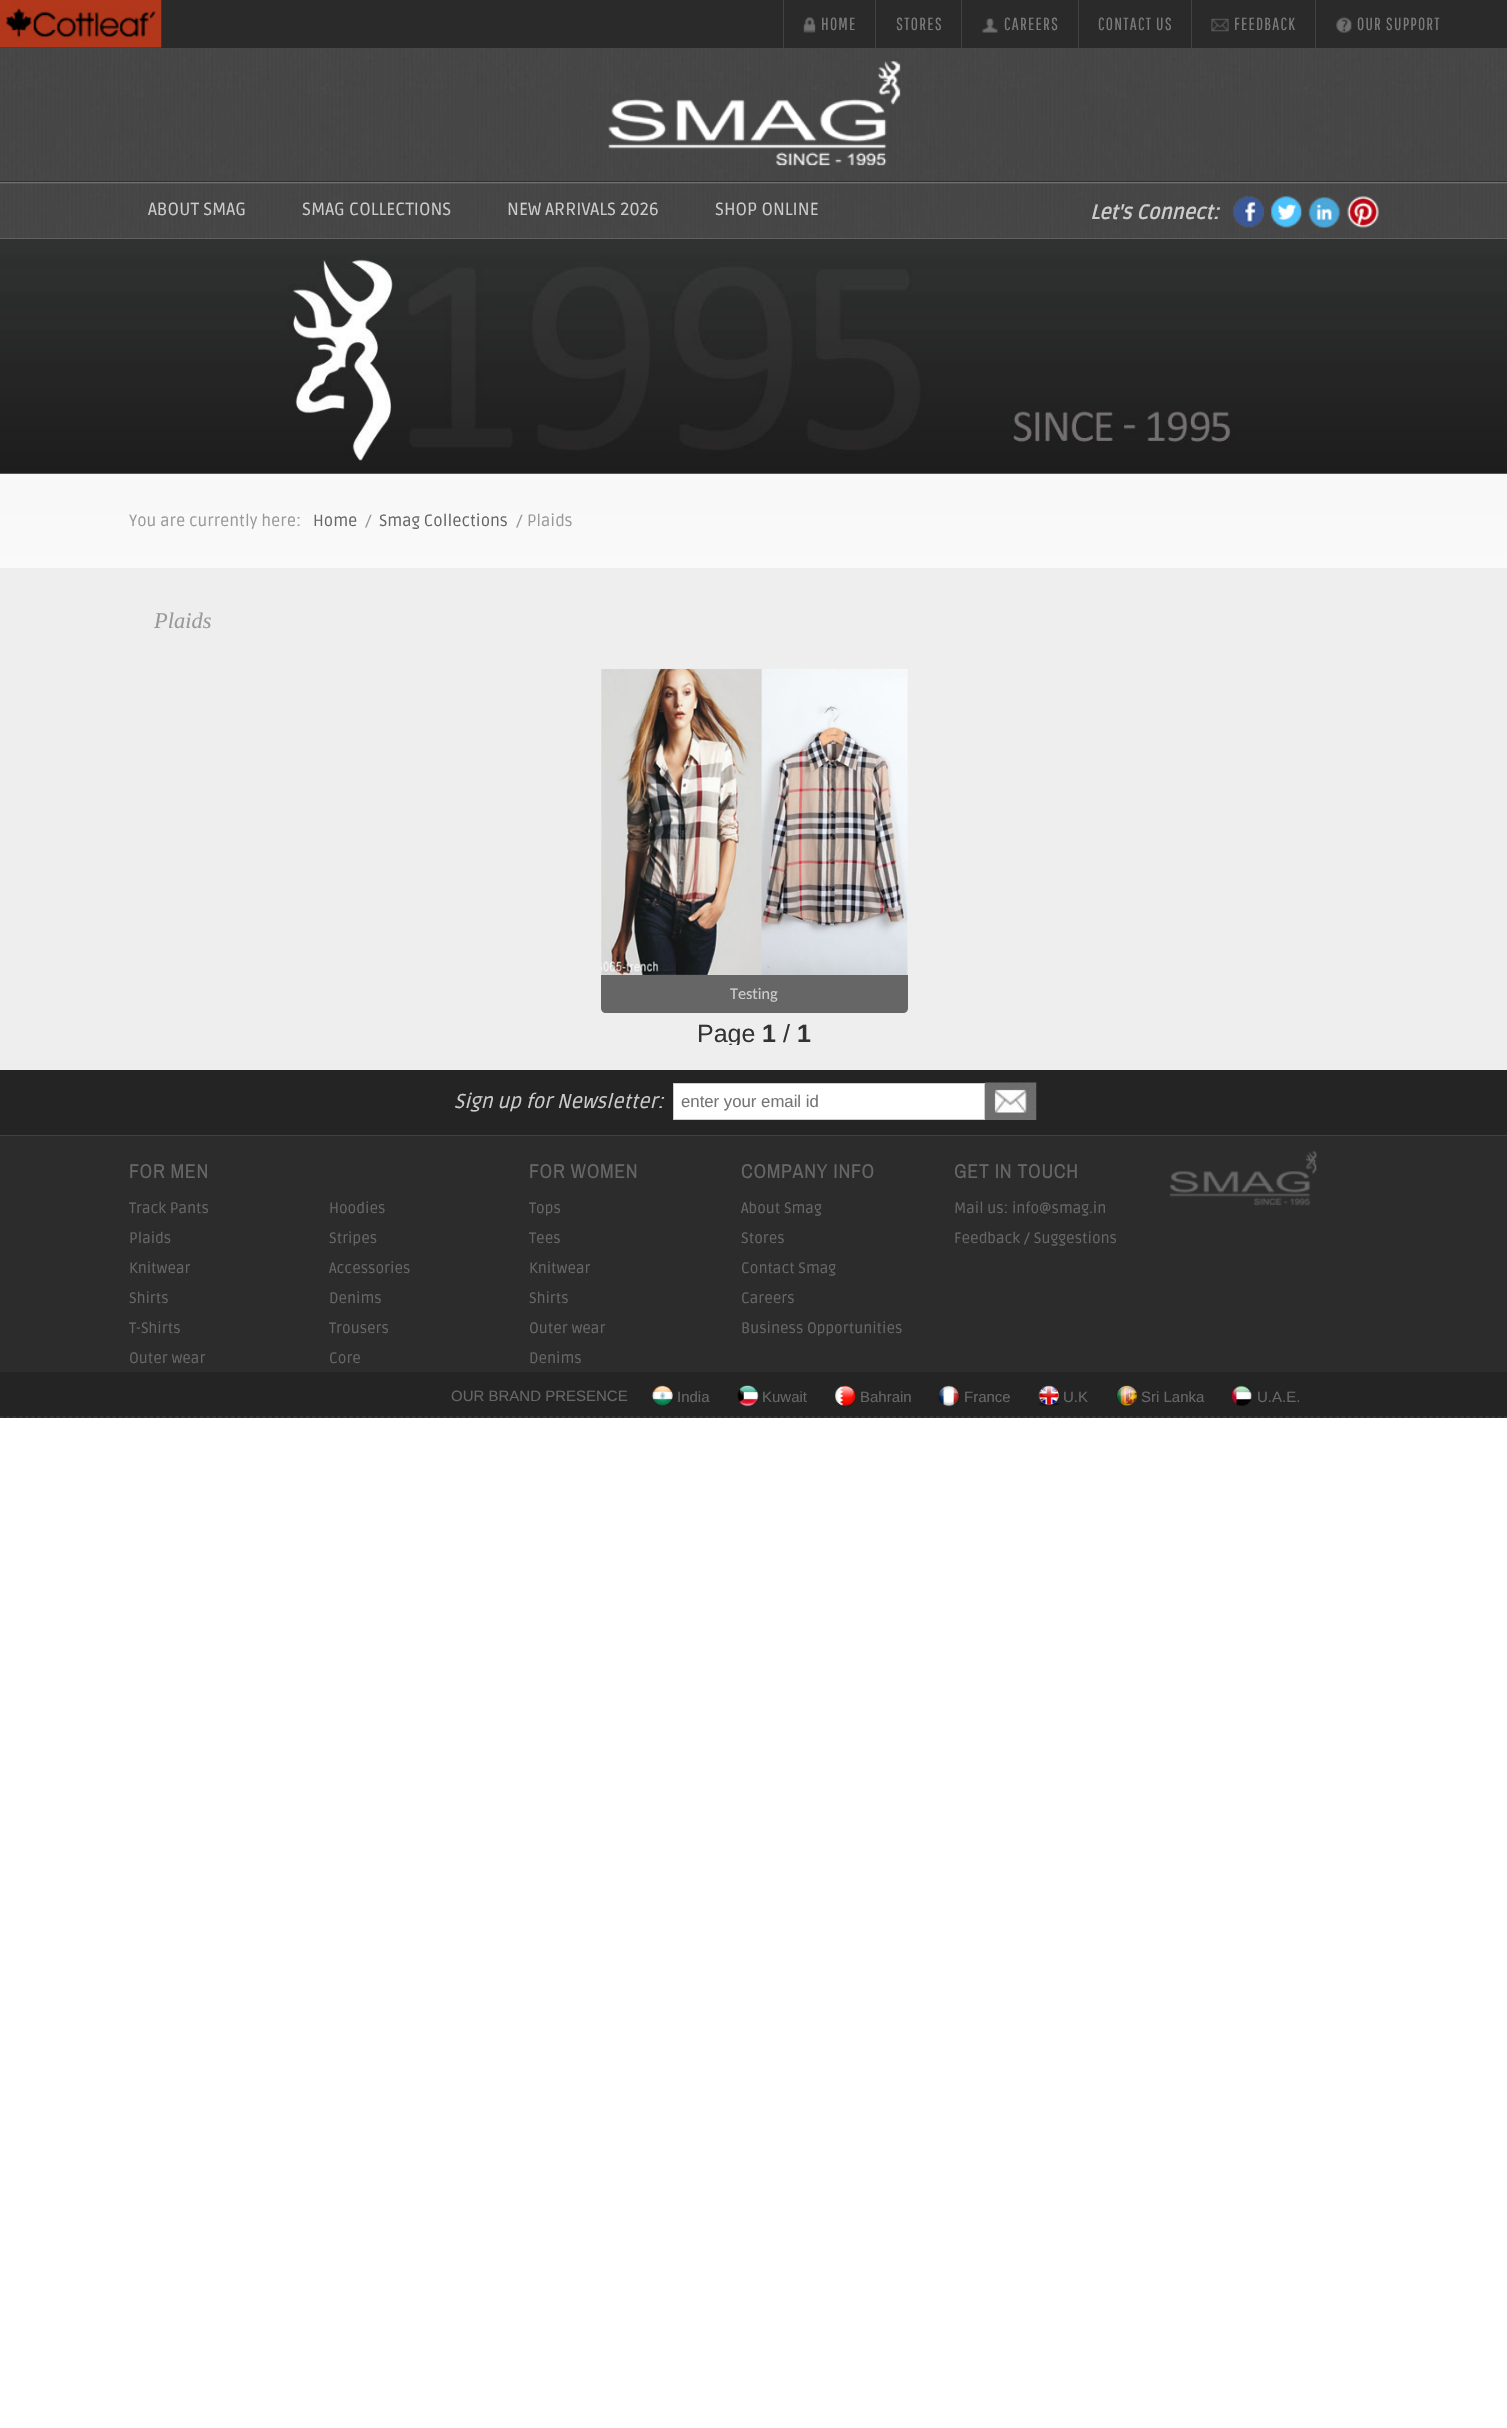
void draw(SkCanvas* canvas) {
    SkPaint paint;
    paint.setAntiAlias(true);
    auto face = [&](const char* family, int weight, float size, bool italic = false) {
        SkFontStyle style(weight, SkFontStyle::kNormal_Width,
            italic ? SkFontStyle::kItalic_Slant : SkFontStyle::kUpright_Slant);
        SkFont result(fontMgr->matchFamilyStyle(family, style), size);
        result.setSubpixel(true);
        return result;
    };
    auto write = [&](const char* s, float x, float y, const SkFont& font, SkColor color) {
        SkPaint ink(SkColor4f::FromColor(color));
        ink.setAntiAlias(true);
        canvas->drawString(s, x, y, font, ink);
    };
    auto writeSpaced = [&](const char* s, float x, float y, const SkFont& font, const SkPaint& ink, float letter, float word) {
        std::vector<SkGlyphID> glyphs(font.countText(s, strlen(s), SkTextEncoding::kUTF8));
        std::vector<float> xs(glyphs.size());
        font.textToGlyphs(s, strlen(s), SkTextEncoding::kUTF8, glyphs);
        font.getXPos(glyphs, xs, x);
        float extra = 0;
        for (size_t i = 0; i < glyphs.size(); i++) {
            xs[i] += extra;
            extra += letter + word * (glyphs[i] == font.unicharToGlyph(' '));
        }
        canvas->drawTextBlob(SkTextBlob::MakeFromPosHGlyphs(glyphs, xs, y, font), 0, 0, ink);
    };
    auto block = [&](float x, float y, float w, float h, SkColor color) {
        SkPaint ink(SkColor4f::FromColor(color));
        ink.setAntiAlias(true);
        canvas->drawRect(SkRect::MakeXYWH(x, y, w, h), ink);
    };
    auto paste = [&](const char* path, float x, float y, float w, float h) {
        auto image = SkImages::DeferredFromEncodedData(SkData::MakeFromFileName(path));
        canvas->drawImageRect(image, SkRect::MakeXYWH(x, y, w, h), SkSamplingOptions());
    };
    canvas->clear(SK_ColorWHITE);
    paste("pic1.png", 0, 182, 1507, 386);
    block(0, 0, 1507, 48, SkColorSetRGB(42, 42, 42));
    paste("pic2.png", 0, 0, 162, 48);
    block(783, 0, 1, 48, SkColorSetRGB(67, 66, 66));
    paste("pic3.png", 803, 17, 13, 16);
    auto kFont1 = face("Pathway Gothic One", 400, 17.5f);
    paint.setColor(SkColorSetRGB(124, 123, 123));
    writeSpaced("HOME", 821, 30, kFont1, paint, 1.25f, 0);
    block(875, 0, 1, 48, SkColorSetRGB(67, 66, 66));
    writeSpaced("STORES", 896, 30, kFont1, paint, 1.25f, 0);
    block(961, 0, 1, 48, SkColorSetRGB(67, 66, 66));
    paste("pic4.png", 982, 18, 16, 15);
    writeSpaced("CAREERS", 1004, 30, kFont1, paint, 1.25f, 0);
    block(1078, 0, 1, 48, SkColorSetRGB(67, 66, 66));
    writeSpaced("CONTACT US", 1098, 30, kFont1, paint, 1.25f, 0);
    block(1191, 0, 1, 48, SkColorSetRGB(67, 66, 66));
    paste("pic5.png", 1211, 18, 18, 14);
    writeSpaced("FEEDBACK", 1234, 30, kFont1, paint, 1.25f, 0);
    block(1315, 0, 1, 48, SkColorSetRGB(67, 66, 66));
    paste("pic6.png", 1336, 17, 16, 16);
    writeSpaced("OUR SUPPORT", 1357, 30, kFont1, paint, 1.25f, 0);
    paste("pic7.png", 0, 48, 1507, 135);
    block(0, 181, 1507, 1, SkColorSetRGB(49, 49, 49));
    paste("pic8.png", 608, 61, 293, 105);
    paste("pic9.png", 0, 182, 1507, 57);
    block(0, 183, 1507, 1, SkColorSetRGB(84, 84, 84));
    auto kFont2 = face("Ruda", 400, 17.5f);
    write("ABOUT SMAG", 148, 215, kFont2, SkColorSetRGB(204, 204, 204));
    write("SMAG COLLECTIONS", 302, 215, kFont2, SkColorSetRGB(204, 204, 204));
    write("NEW ARRIVALS 2026", 507, 215, kFont2, SkColorSetRGB(204, 204, 204));
    write("SHOP ONLINE", 715, 215, kFont2, SkColorSetRGB(204, 204, 204));
    auto kFont3 = face("Ruda", 700, 20, true);
    write("Let's Connect:", 1090, 219, kFont3, SkColorSetRGB(204, 204, 204));
    paste("pic10.png", 1232, 196, 32, 32);
    paste("pic11.png", 1271, 196, 31, 32);
    paste("pic12.png", 1308, 197, 33, 31);
    paste("pic13.png", 1347, 196, 32, 32);
    paste("pic14.png", 0, 238, 1507, 236);
    auto kFont4 = face("Ruda", 400, 16.25f);
    write("You are currently here:", 129, 526, kFont4, SkColorSetRGB(153, 153, 153));
    write("Home", 313, 526, kFont4, SkColorSetRGB(102, 102, 102));
    write("/", 365, 526, kFont4, SkColorSetRGB(153, 153, 153));
    write("Smag Collections", 379, 526, kFont4, SkColorSetRGB(102, 102, 102));
    write("/ Plaids", 516, 526, kFont4, SkColorSetRGB(153, 153, 153));
    block(0, 568, 1507, 502, SkColorSetRGB(238, 238, 238));
    auto kFont5 = face("Liberation Serif", 400, 22.5f, true);
    write("Plaids", 154, 628, kFont5, SkColorSetRGB(153, 153, 153));
    paste("pic15.png", 601, 668, 307, 307);
    paint.setColor(SkColorSetRGB(102, 102, 102));
    canvas->drawPath(SkPathBuilder().moveTo(601, 975).lineTo(908, 975).lineTo(908, 1008).cubicTo(908, 1011, 906, 1013, 903, 1013).lineTo(606, 1013).cubicTo(603, 1013, 601, 1011, 601, 1008).close().detach(), paint);
    auto kFont6 = face("Carlito", 400, 16.25f);
    write("Testing", 730, 999, kFont6, SkColorSetRGB(204, 204, 204));
    canvas->save();
    canvas->clipRect(SkRect::MakeXYWH(129, 669, 1250, 376));
    auto kFont7 = face("Liberation Sans", 400, 25);
    write("Page", 697, 1042, kFont7, SkColorSetRGB(51, 51, 51));
    canvas->restore();
    auto kFont8 = face("Liberation Sans", 700, 25);
    write("1", 762, 1042, kFont8, SkColorSetRGB(51, 51, 51));
    write("/", 783, 1042, kFont7, SkColorSetRGB(51, 51, 51));
    write("1", 797, 1042, kFont8, SkColorSetRGB(51, 51, 51));
    paste("pic16.png", 0, 1070, 1507, 65);
    auto kFont9 = face("Ruda", 400, 20, true);
    write("Sign up for Newsletter:", 454, 1108, kFont9, SkColorSetRGB(204, 204, 204));
    paint.setColor(SK_ColorWHITE);
    canvas->drawRect(SkRect::MakeXYWH(673.5f, 1083.5f, 311, 36), paint);
    paint.setStyle(SkPaint::kStroke_Style);
    paint.setStrokeWidth(1);
    paint.setColor(SkColorSetRGB(204, 204, 204));
    canvas->drawRect(SkRect::MakeXYWH(673.5f, 1083.5f, 311, 36), paint);
    auto kFont10 = face("Liberation Sans", 400, 16.75f);
    write("enter your email id", 681, 1107, kFont10, SkColorSetRGB(117, 117, 117));
    paste("pic17.png", 985, 1082, 52, 38);
    block(0, 1136, 1507, 236, SkColorSetRGB(44, 44, 44));
    block(0, 1135, 1507, 1, SkColorSetRGB(64, 64, 64));
    auto kFont11 = face("Archivo Narrow", 400, 20);
    paint.setStyle(SkPaint::kFill_Style);
    paint.setColor(SkColorSetRGB(102, 102, 102));
    writeSpaced("FOR MEN", 129, 1178, kFont11, paint, 0.6f, 0);
    auto kFont12 = face("Ruda", 400, 15);
    write("Track Pants", 129, 1213, kFont12, SkColorSetRGB(102, 102, 102));
    write("Plaids", 129, 1243, kFont12, SkColorSetRGB(102, 102, 102));
    write("Knitwear", 129, 1273, kFont12, SkColorSetRGB(102, 102, 102));
    write("Shirts", 129, 1303, kFont12, SkColorSetRGB(102, 102, 102));
    write("T-Shirts", 129, 1333, kFont12, SkColorSetRGB(102, 102, 102));
    write("Outer wear", 129, 1363, kFont12, SkColorSetRGB(102, 102, 102));
    write("Hoodies", 329, 1213, kFont12, SkColorSetRGB(102, 102, 102));
    write("Stripes", 329, 1243, kFont12, SkColorSetRGB(102, 102, 102));
    write("Accessories", 329, 1273, kFont12, SkColorSetRGB(102, 102, 102));
    write("Denims", 329, 1303, kFont12, SkColorSetRGB(102, 102, 102));
    write("Trousers", 329, 1333, kFont12, SkColorSetRGB(102, 102, 102));
    write("Core", 329, 1363, kFont12, SkColorSetRGB(102, 102, 102));
    writeSpaced("FOR WOMEN", 529, 1178, kFont11, paint, 0.6f, 0);
    write("Tops", 529, 1213, kFont12, SkColorSetRGB(102, 102, 102));
    write("Tees", 529, 1243, kFont12, SkColorSetRGB(102, 102, 102));
    write("Knitwear", 529, 1273, kFont12, SkColorSetRGB(102, 102, 102));
    write("Shirts", 529, 1303, kFont12, SkColorSetRGB(102, 102, 102));
    write("Outer wear", 529, 1333, kFont12, SkColorSetRGB(102, 102, 102));
    write("Denims", 529, 1363, kFont12, SkColorSetRGB(102, 102, 102));
    writeSpaced("COMPANY INFO", 741, 1178, kFont11, paint, 0.6f, 0);
    write("About Smag", 741, 1213, kFont12, SkColorSetRGB(102, 102, 102));
    write("Stores", 741, 1243, kFont12, SkColorSetRGB(102, 102, 102));
    write("Contact Smag", 741, 1273, kFont12, SkColorSetRGB(102, 102, 102));
    write("Careers", 741, 1303, kFont12, SkColorSetRGB(102, 102, 102));
    write("Business Opportunities", 741, 1333, kFont12, SkColorSetRGB(102, 102, 102));
    writeSpaced("GET IN TOUCH", 954, 1178, kFont11, paint, 0.6f, 0);
    write("Mail us: info@smag.in", 954, 1213, kFont12, SkColorSetRGB(102, 102, 102));
    write("Feedback / Suggestions", 954, 1243, kFont12, SkColorSetRGB(102, 102, 102));
    paste("pic18.png", 1170, 1151, 147, 55);
    block(0, 1372, 1507, 46, SkColorSetRGB(36, 36, 36));
    auto kFont13 = face("Liberation Sans", 400, 15);
    write("OUR BRAND PRESENCE", 451, 1401, kFont13, SkColorSetRGB(102, 102, 102));
    paste("pic19.png", 652, 1385, 21, 21);
    write("India", 677, 1402, kFont13, SkColorSetRGB(102, 102, 102));
    paste("pic20.png", 737, 1385, 22, 22);
    write("Kuwait", 762, 1402, kFont13, SkColorSetRGB(102, 102, 102));
    paste("pic21.png", 835, 1385, 21, 22);
    write("Bahrain", 860, 1402, kFont13, SkColorSetRGB(102, 102, 102));
    paste("pic22.png", 938, 1385, 22, 22);
    write("France", 964, 1402, kFont13, SkColorSetRGB(102, 102, 102));
    paste("pic23.png", 1038, 1385, 21, 21);
    write("U.K", 1063, 1402, kFont13, SkColorSetRGB(102, 102, 102));
    paste("pic24.png", 1116, 1385, 22, 21);
    write("Sri Lanka", 1141, 1402, kFont13, SkColorSetRGB(102, 102, 102));
    paste("pic25.png", 1231, 1385, 21, 21);
    write("U.A.E.", 1257, 1402, kFont13, SkColorSetRGB(102, 102, 102));
    paint.setStyle(SkPaint::kStroke_Style);
    paint.setStrokeWidth(1.2f);
    paint.setColor(SkColorSetRGB(64, 64, 64));
    paint.setPathEffect(SkDashPathEffect::Make({{3.75f, 2.49f}}, 0));
    canvas->drawPath(SkPathBuilder().moveTo(0, 1417).lineTo(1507.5f, 1417).detach(), paint);
    paint.setPathEffect(nullptr);
}
